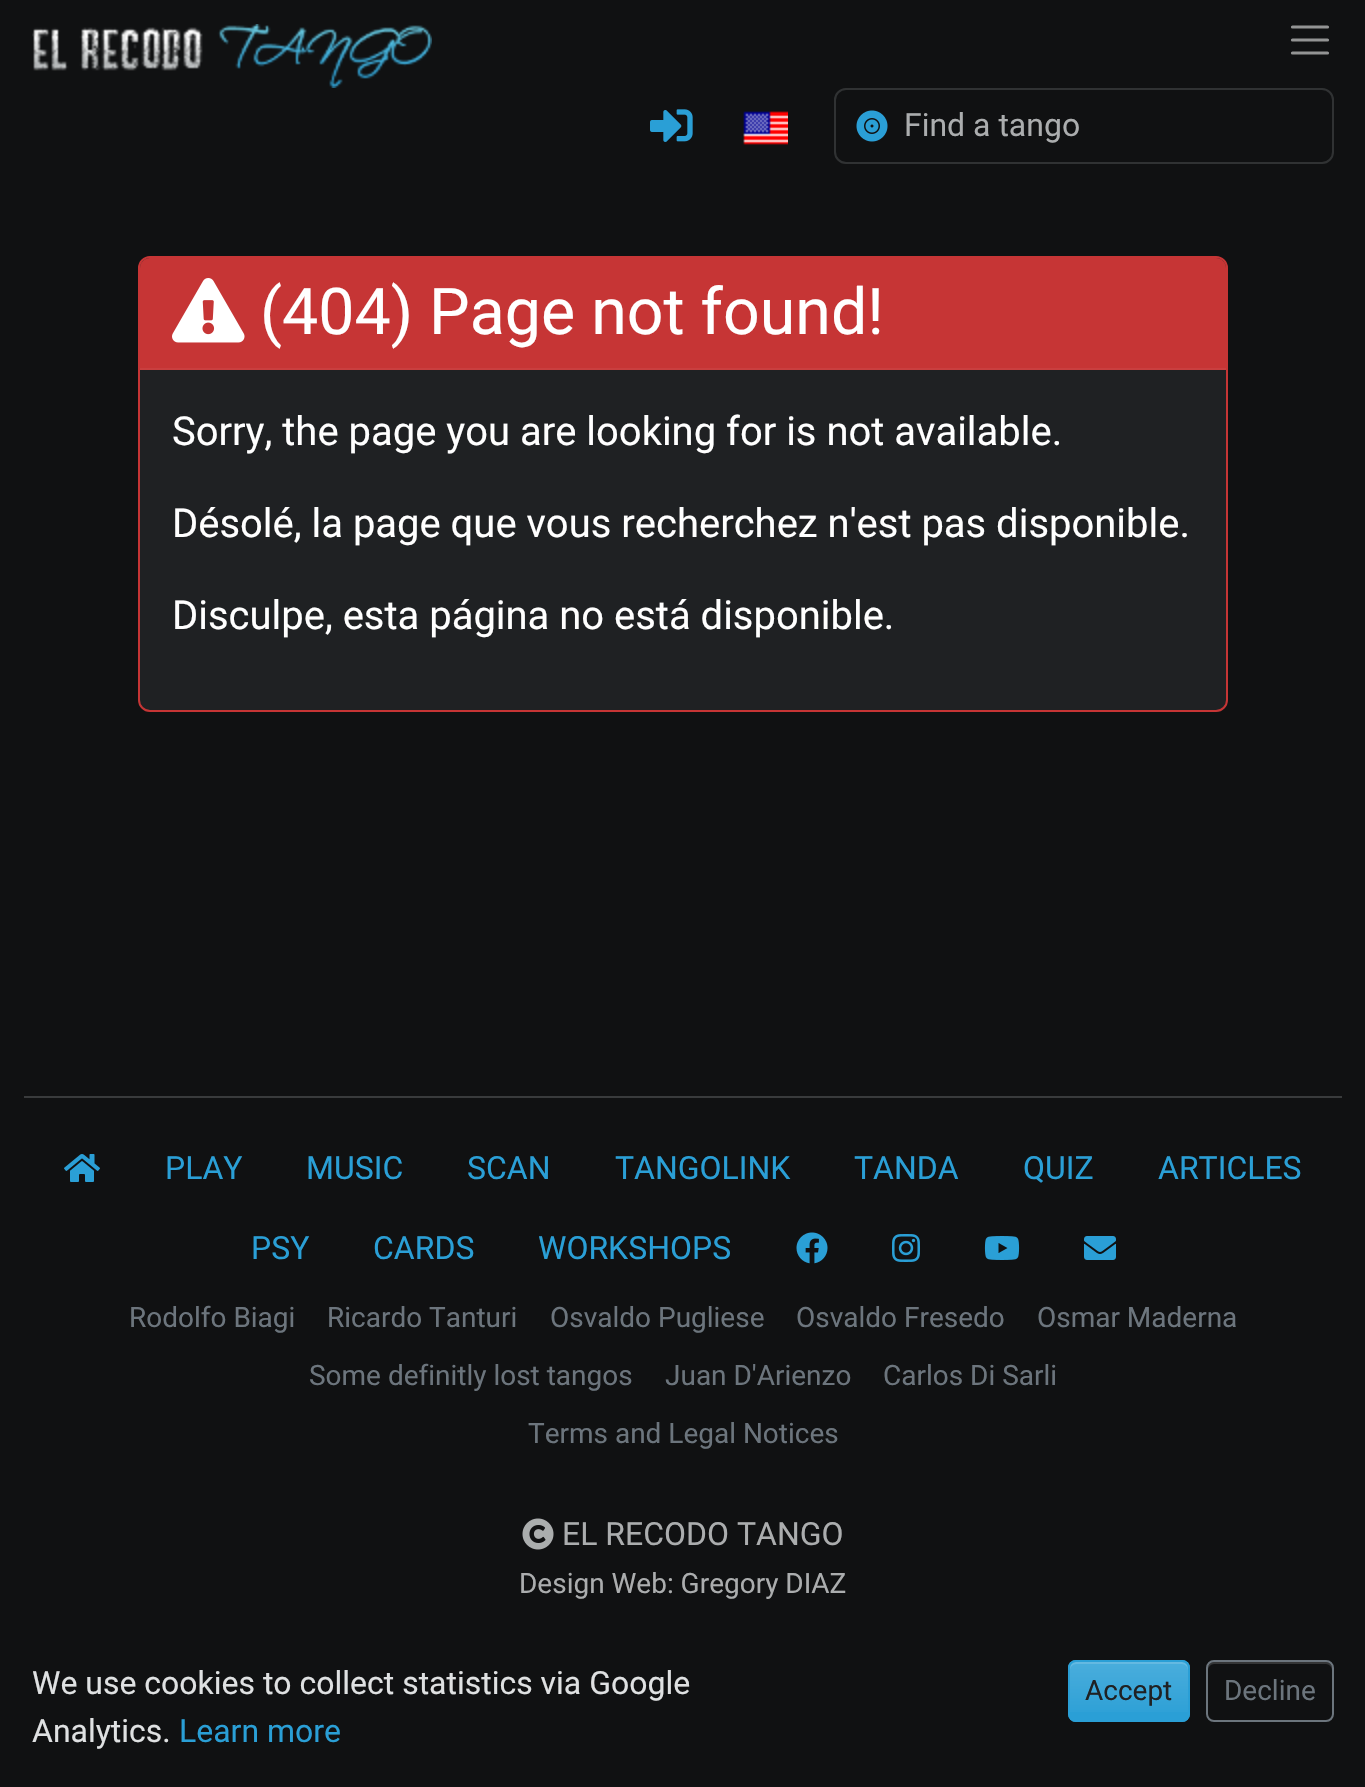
void draw(SkCanvas* canvas) {
    SkPaint paint;
    paint.setAntiAlias(true);
    auto face = [&](const char* family, int weight, float size, bool italic = false) {
        SkFontStyle style(weight, SkFontStyle::kNormal_Width,
            italic ? SkFontStyle::kItalic_Slant : SkFontStyle::kUpright_Slant);
        SkFont result(fontMgr->matchFamilyStyle(family, style), size);
        result.setSubpixel(true);
        return result;
    };
    auto write = [&](const char* s, float x, float y, const SkFont& font, SkColor color) {
        SkPaint ink(SkColor4f::FromColor(color));
        ink.setAntiAlias(true);
        canvas->drawString(s, x, y, font, ink);
    };
    auto block = [&](float x, float y, float w, float h, SkColor color) {
        SkPaint ink(SkColor4f::FromColor(color));
        ink.setAntiAlias(true);
        canvas->drawRect(SkRect::MakeXYWH(x, y, w, h), ink);
    };
    auto card = [&](float x, float y, float w, float h, float radius, SkColor color) {
        SkPaint ink(SkColor4f::FromColor(color));
        ink.setAntiAlias(true);
        canvas->drawRoundRect(SkRect::MakeXYWH(x, y, w, h), radius, radius, ink);
    };
    auto paste = [&](const char* path, float x, float y, float w, float h) {
        auto image = SkImages::DeferredFromEncodedData(SkData::MakeFromFileName(path));
        canvas->drawImageRect(image, SkRect::MakeXYWH(x, y, w, h), SkSamplingOptions());
    };
    canvas->clear(SkColorSetRGB(16, 17, 18));
    paste("pic1.png", 32, 24, 400, 64);
    paint.setStyle(SkPaint::kStroke_Style);
    paint.setStrokeWidth(3.2f);
    paint.setStrokeCap(SkPaint::kRound_Cap);
    paint.setColor(SkColorSetRGB(147, 148, 148));
    canvas->drawPath(SkPathBuilder().moveTo(1292.5f, 27).lineTo(1327.5f, 27).moveTo(1292.5f, 40).lineTo(1327.5f, 40).moveTo(1292.5f, 53).lineTo(1327.5f, 53).detach(), paint);
    paste("pic2.png", 650, 109, 43, 33);
    paste("pic3.png", 743, 111, 45, 34);
    paint.setStrokeWidth(2);
    paint.setStrokeCap(SkPaint::kButt_Cap);
    paint.setColor(SkColorSetRGB(48, 50, 51));
    canvas->drawRoundRect(SkRect::MakeXYWH(835, 89, 498, 74), 11, 11, paint);
    paste("pic4.png", 856, 110, 32, 32);
    auto kFont1 = face("Roboto", 400, 32);
    write("Find a tango", 904, 136, kFont1, SkColorSetRGB(171, 173, 174));
    paint.setStyle(SkPaint::kFill_Style);
    paint.setColor(SkColorSetRGB(31, 33, 35));
    canvas->drawRoundRect(SkRect::MakeXYWH(139, 257, 1088, 454), 11, 11, paint);
    paint.setStyle(SkPaint::kStroke_Style);
    paint.setColor(SkColorSetRGB(198, 53, 53));
    canvas->drawRoundRect(SkRect::MakeXYWH(139, 257, 1088, 454), 11, 11, paint);
    paint.setStyle(SkPaint::kFill_Style);
    canvas->drawPath(SkPathBuilder().moveTo(150, 258).lineTo(1216, 258).cubicTo(1221.5f, 258, 1226, 262.5f, 1226, 268).lineTo(1226, 370).lineTo(140, 370).lineTo(140, 268).cubicTo(140, 262.5f, 144.5f, 258, 150, 258).close().detach(), paint);
    block(140, 368, 1086, 2, SkColorSetRGB(201, 63, 63));
    paste("pic5.png", 172, 278, 73, 65);
    auto kFont2 = face("Roboto", 400, 64.5f);
    write("(404) Page not found!", 260, 334, kFont2, SK_ColorWHITE);
    auto kFont3 = face("Roboto", 400, 40);
    write("Sorry, the page you are looking for is not available.", 172, 445, kFont3, SK_ColorWHITE);
    write("Désolé, la page que vous recherchez n'est pas disponible.", 172, 537, kFont3, SK_ColorWHITE);
    write("Disculpe, esta página no está disponible.", 172, 629, kFont3, SK_ColorWHITE);
    block(24, 1096, 1318, 2, SkColorSetRGB(57, 59, 60));
    paste("pic6.png", 64, 1154, 36, 28);
    write("PLAY", 165, 1179, kFont1, SkColorSetRGB(42, 159, 214));
    write("MUSIC", 306, 1179, kFont1, SkColorSetRGB(42, 159, 214));
    write("SCAN", 467, 1179, kFont1, SkColorSetRGB(42, 159, 214));
    write("TANGOLINK", 615, 1179, kFont1, SkColorSetRGB(42, 159, 214));
    write("TANDA", 854, 1179, kFont1, SkColorSetRGB(42, 159, 214));
    write("QUIZ", 1023, 1179, kFont1, SkColorSetRGB(42, 159, 214));
    write("ARTICLES", 1158, 1179, kFont1, SkColorSetRGB(42, 159, 214));
    write("PSY", 251, 1259, kFont1, SkColorSetRGB(42, 159, 214));
    write("CARDS", 373, 1259, kFont1, SkColorSetRGB(42, 159, 214));
    write("WORKSHOPS", 538, 1259, kFont1, SkColorSetRGB(42, 159, 214));
    paste("pic7.png", 796, 1232, 32, 32);
    paste("pic8.png", 892, 1234, 28, 28);
    paste("pic9.png", 984, 1236, 36, 24);
    paste("pic10.png", 1084, 1236, 32, 24);
    auto kFont4 = face("Roboto", 400, 28);
    write("Rodolfo Biagi", 129, 1327, kFont4, SkColorSetRGB(108, 117, 125));
    write("Ricardo Tanturi", 327, 1327, kFont4, SkColorSetRGB(108, 117, 125));
    write("Osvaldo Pugliese", 550, 1327, kFont4, SkColorSetRGB(108, 117, 125));
    write("Osvaldo Fresedo", 796, 1327, kFont4, SkColorSetRGB(108, 117, 125));
    write("Osmar Maderna", 1037, 1327, kFont4, SkColorSetRGB(108, 117, 125));
    write("Some definitly lost tangos", 309, 1385, kFont4, SkColorSetRGB(108, 117, 125));
    write("Juan D'Arienzo", 665, 1385, kFont4, SkColorSetRGB(108, 117, 125));
    write("Carlos Di Sarli", 883, 1385, kFont4, SkColorSetRGB(108, 117, 125));
    write("Terms and Legal Notices", 528, 1443, kFont4, SkColorSetRGB(108, 117, 125));
    paste("pic11.png", 522, 1518, 32, 32);
    write("EL RECODO TANGO", 562, 1545, kFont1, SkColorSetRGB(171, 173, 174));
    write("Design Web: Gregory DIAZ", 519, 1593, kFont4, SkColorSetRGB(171, 173, 174));
    write("We use cookies to collect statistics via Google", 32, 1694, kFont1, SkColorSetRGB(223, 225, 226));
    write("Analytics.", 32, 1742, kFont1, SkColorSetRGB(223, 225, 226));
    write("Learn more", 179, 1742, kFont1, SkColorSetRGB(42, 159, 214));
    card(1068, 1660, 122, 62, 8, SkColorSetRGB(42, 159, 214));
    canvas->save();
    canvas->clipPath(SkPathBuilder().moveTo(1076, 1660).lineTo(1182, 1660).cubicTo(1186.5f, 1660, 1190, 1663.5f, 1190, 1668).lineTo(1190, 1714).cubicTo(1190, 1718.5f, 1186.5f, 1722, 1182, 1722).lineTo(1076, 1722).cubicTo(1071.5f, 1722, 1068, 1718.5f, 1068, 1714).lineTo(1068, 1668).cubicTo(1068, 1663.5f, 1071.5f, 1660, 1076, 1660).close().detach(), true);
    {
        const SkColor colors[] = {SkColorSetARGB(38, 255, 255, 255), SkColorSetARGB(0, 255, 255, 255)};
        const float stops[] = {0, 1};
        const SkPoint ends[] = {{1129, 1662}, {1129, 1720}};
        paint.setShader(SkGradientShader::MakeLinear(ends, colors, stops, 2, SkTileMode::kClamp));
        paint.setAlpha(255);
    }
    canvas->drawRect(SkRect::MakeXYWH(1068, 1662, 122, 50), paint);
    canvas->restore();
    paint.setShader(nullptr);
    paint.setColor(SkColorSetARGB(38, 255, 255, 255));
    canvas->drawPath(SkPathBuilder().moveTo(1076, 1664).lineTo(1182, 1664).cubicTo(1185, 1664, 1188, 1667, 1188, 1670).lineTo(1188, 1668).cubicTo(1188, 1665, 1185, 1662, 1182, 1662).lineTo(1076, 1662).cubicTo(1073, 1662, 1070, 1665, 1070, 1668).lineTo(1070, 1670).cubicTo(1070, 1667, 1073, 1664, 1076, 1664).close().detach(), paint);
    paint.setStyle(SkPaint::kStroke_Style);
    paint.setColor(SkColorSetRGB(42, 159, 214));
    canvas->drawRoundRect(SkRect::MakeXYWH(1069, 1661, 120, 60), 7, 7, paint);
    write("Accept", 1085, 1700, kFont4, SkColorSetRGB(31, 33, 35));
    paint.setStyle(SkPaint::kFill_Style);
    paint.setColor(SkColorSetRGB(52, 53, 54));
    canvas->drawPath(SkPathBuilder().moveTo(1214, 1664).lineTo(1326, 1664).cubicTo(1329, 1664, 1332, 1667, 1332, 1670).lineTo(1332, 1668).cubicTo(1332, 1665, 1329, 1662, 1326, 1662).lineTo(1214, 1662).cubicTo(1211, 1662, 1208, 1665, 1208, 1668).lineTo(1208, 1670).cubicTo(1208, 1667, 1211, 1664, 1214, 1664).close().detach(), paint);
    paint.setStyle(SkPaint::kStroke_Style);
    paint.setColor(SkColorSetRGB(108, 117, 125));
    canvas->drawRoundRect(SkRect::MakeXYWH(1207, 1661, 126, 60), 7, 7, paint);
    write("Decline", 1224, 1700, kFont4, SkColorSetRGB(108, 117, 125));
}
